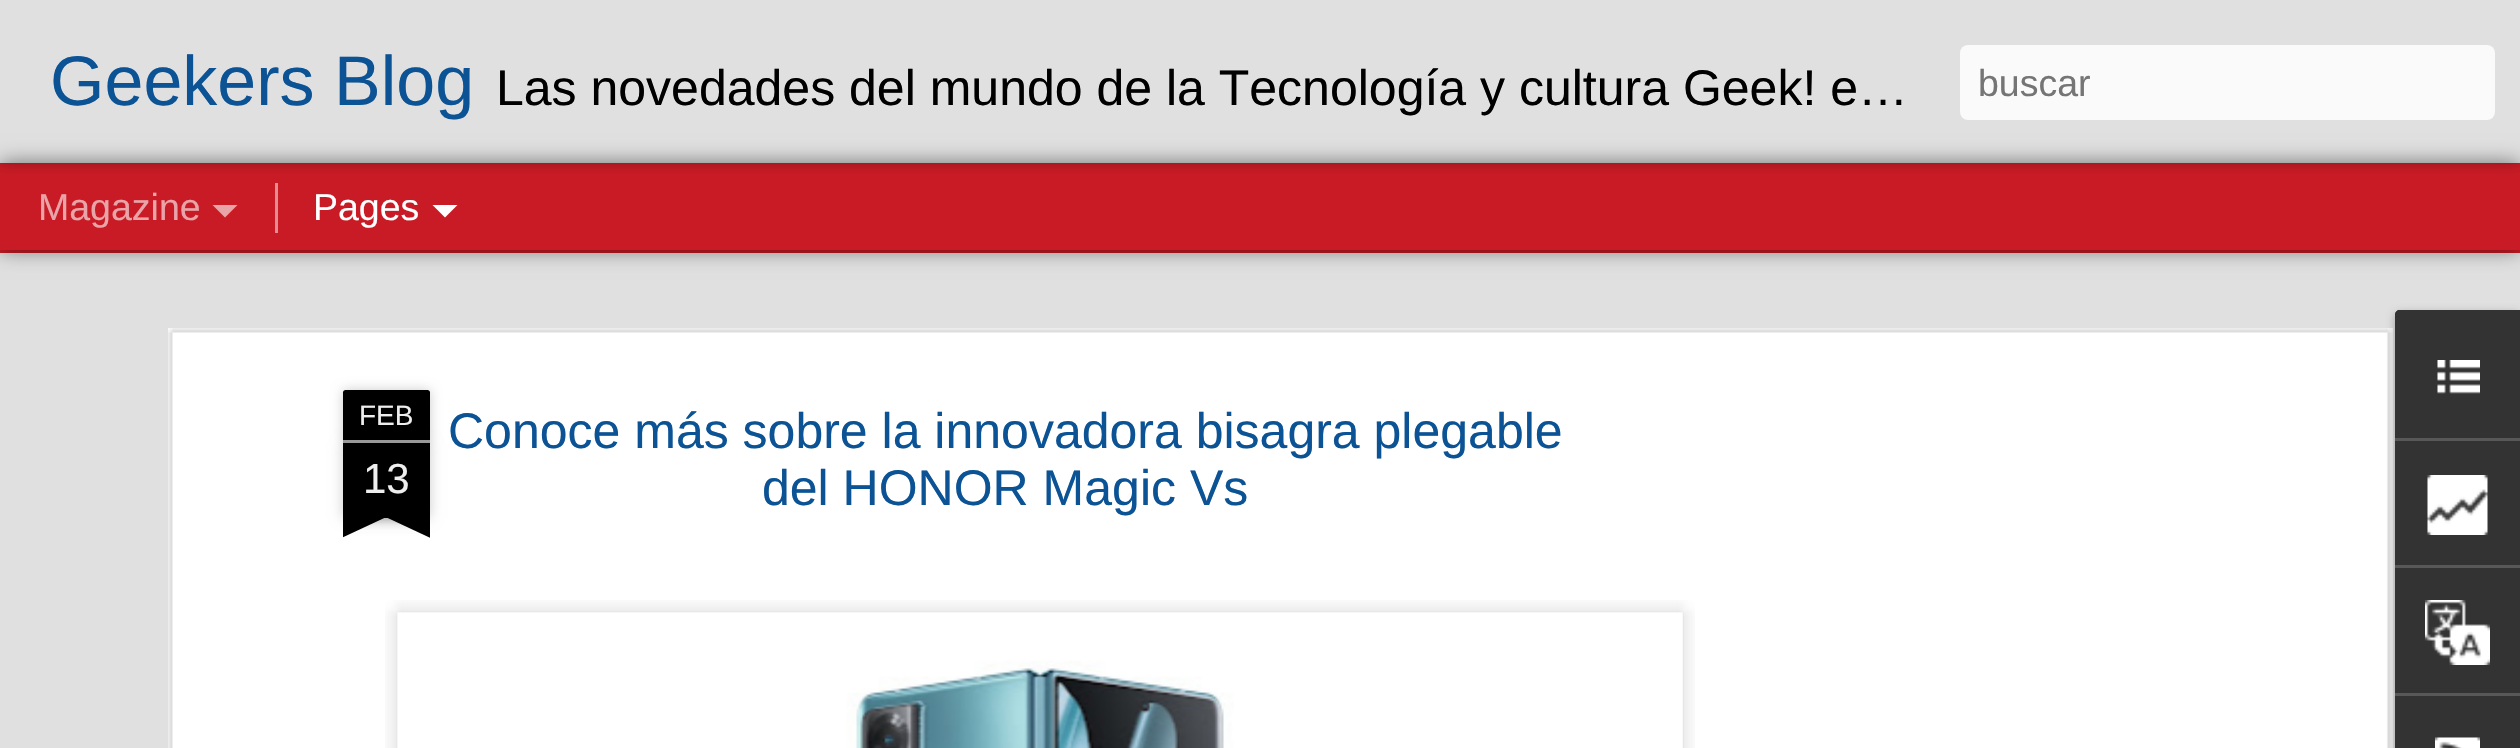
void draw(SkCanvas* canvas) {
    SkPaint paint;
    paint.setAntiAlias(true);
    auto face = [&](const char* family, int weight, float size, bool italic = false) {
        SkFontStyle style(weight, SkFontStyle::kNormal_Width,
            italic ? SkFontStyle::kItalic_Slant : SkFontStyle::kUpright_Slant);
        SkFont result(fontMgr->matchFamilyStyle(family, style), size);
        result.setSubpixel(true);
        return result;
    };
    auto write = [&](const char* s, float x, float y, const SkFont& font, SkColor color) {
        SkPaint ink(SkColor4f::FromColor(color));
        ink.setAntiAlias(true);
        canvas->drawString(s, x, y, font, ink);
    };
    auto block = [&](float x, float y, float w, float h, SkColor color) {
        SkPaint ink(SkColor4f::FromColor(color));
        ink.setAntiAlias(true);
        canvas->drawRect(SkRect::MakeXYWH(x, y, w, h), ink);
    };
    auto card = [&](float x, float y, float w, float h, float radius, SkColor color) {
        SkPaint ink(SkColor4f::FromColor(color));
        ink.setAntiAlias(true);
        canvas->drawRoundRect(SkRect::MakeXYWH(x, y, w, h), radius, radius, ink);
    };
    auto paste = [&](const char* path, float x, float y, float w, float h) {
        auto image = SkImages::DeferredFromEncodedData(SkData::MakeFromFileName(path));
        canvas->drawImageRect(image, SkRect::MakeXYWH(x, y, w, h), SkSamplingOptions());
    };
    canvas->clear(SkColorSetRGB(224, 224, 224));
    block(0, 250, 2520, 3, SkColorSetRGB(201, 27, 37));
    paint.setColor(SkColorSetARGB(128, 0, 0, 0));
    paint.setMaskFilter(SkMaskFilter::MakeBlur(kNormal_SkBlurStyle, 10));
    canvas->drawRect(SkRect::MakeXYWH(0, 163, 2520, 87), paint);
    paint.setMaskFilter(nullptr);
    block(0, 163, 2520, 87, SkColorSetRGB(201, 27, 37));
    canvas->save();
    canvas->clipPath(SkPathBuilder(SkPathFillType::kEvenOdd).moveTo(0, 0).lineTo(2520, 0).lineTo(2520, 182).lineTo(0, 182).close().moveTo(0, 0).lineTo(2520, 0).lineTo(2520, 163).lineTo(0, 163).close().detach(), true);
    paint.setColor(SkColorSetARGB(77, 0, 0, 0));
    paint.setMaskFilter(SkMaskFilter::MakeBlur(kNormal_SkBlurStyle, 6));
    canvas->drawRect(SkRect::MakeXYWH(0, 0, 2520, 163), paint);
    paint.setMaskFilter(nullptr);
    canvas->restore();
    auto kFont1 = face("Liberation Sans", 400, 70);
    write("Geekers Blog", 50, 105, kFont1, SkColorSetRGB(11, 83, 148));
    auto kFont2 = face("Liberation Sans", 400, 50);
    write("Las novedades del mundo de la Tecnología y cultura Geek! e…", 496, 105, kFont2, SK_ColorBLACK);
    card(1960, 45, 535, 75, 8, SkColorSetRGB(250, 250, 250));
    auto kFont3 = face("Liberation Sans", 400, 37.5f);
    write("buscar", 1978, 96, kFont3, SkColorSetRGB(117, 117, 117));
    write("Magazine", 38, 220, kFont3, SkColorSetRGB(233, 164, 168));
    paint.setColor(SkColorSetRGB(233, 164, 168));
    canvas->drawPath(SkPathBuilder().moveTo(212.5f, 205).lineTo(237.5f, 205).lineTo(225, 217.5f).close().detach(), paint);
    block(275, 183, 3, 50, SkColorSetRGB(228, 141, 146));
    write("Pages", 313, 220, kFont3, SK_ColorWHITE);
    paint.setColor(SK_ColorWHITE);
    canvas->drawPath(SkPathBuilder().moveTo(432.5f, 205).lineTo(457.5f, 205).lineTo(445, 217.5f).close().detach(), paint);
    block(168, 328, 2225, 420, SK_ColorWHITE);
    paste("pic1.png", 168, 328, 2225, 420);
    paint.setColor(SkColorSetARGB(51, 0, 0, 0));
    paint.setMaskFilter(SkMaskFilter::MakeBlur(kNormal_SkBlurStyle, 6));
    canvas->drawRect(SkRect::MakeXYWH(343, 443, 87, 75), paint);
    paint.setMaskFilter(nullptr);
    block(343, 443, 87, 75, SK_ColorBLACK);
    paint.setMaskFilter(SkMaskFilter::MakeBlur(kNormal_SkBlurStyle, 6));
    canvas->drawRoundRect(SkRect::MakeXYWH(343, 390, 87, 53), 2.5f, 2.5f, paint);
    paint.setMaskFilter(nullptr);
    paint.setColor(SK_ColorBLACK);
    canvas->drawPath(SkPathBuilder().moveTo(345.5f, 390).lineTo(427.5f, 390).cubicTo(429, 390, 430, 391, 430, 392.5f).lineTo(430, 443).lineTo(343, 443).lineTo(343, 392.5f).cubicTo(343, 391, 344, 390, 345.5f, 390).close().detach(), paint);
    block(343, 440, 87, 3, SkColorSetRGB(153, 153, 153));
    auto kFont4 = face("Liberation Sans", 400, 28);
    write("FEB", 359, 425, kFont4, SkColorSetRGB(238, 238, 238));
    auto kFont5 = face("Liberation Sans", 400, 42);
    write("13", 363, 493, kFont5, SkColorSetRGB(238, 238, 238));
    canvas->save();
    canvas->clipRect(SkRect::MakeXYWH(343, 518, 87, 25));
    paint.setColor(SkColorSetARGB(51, 0, 0, 0));
    paint.setMaskFilter(SkMaskFilter::MakeBlur(kNormal_SkBlurStyle, 6.5f));
    canvas->drawRect(SkRect::MakeXYWH(320, 493, 125, 25), paint);
    paint.setMaskFilter(nullptr);
    canvas->restore();
    canvas->save();
    canvas->clipRect(SkRect::MakeXYWH(343, 518, 87, 25));
    paint.setColor(SK_ColorBLACK);
    canvas->drawPath(SkPathBuilder().moveTo(321, 520).lineTo(434, 467).lineTo(444, 490).lineTo(331, 543).close().detach(), paint);
    canvas->restore();
    canvas->save();
    canvas->clipRect(SkRect::MakeXYWH(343, 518, 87, 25));
    paint.setColor(SkColorSetARGB(51, 0, 0, 0));
    paint.setMaskFilter(SkMaskFilter::MakeBlur(kNormal_SkBlurStyle, 6.5f));
    canvas->drawRect(SkRect::MakeXYWH(328, 493, 125, 25), paint);
    paint.setMaskFilter(nullptr);
    canvas->restore();
    canvas->save();
    canvas->clipRect(SkRect::MakeXYWH(343, 518, 87, 25));
    paint.setColor(SK_ColorBLACK);
    canvas->drawPath(SkPathBuilder().moveTo(339, 467).lineTo(452, 520).lineTo(441, 543).lineTo(328, 490).close().detach(), paint);
    canvas->restore();
    write("Conoce más sobre la innovadora bisagra plegable", 448, 448, kFont2, SkColorSetRGB(11, 83, 148));
    write("del HONOR Magic Vs", 762, 505, kFont2, SkColorSetRGB(11, 83, 148));
    paste("pic2.png", 385, 600, 1310, 148);
    paste("pic3.png", 397, 612, 1286, 136);
    paint.setColor(SkColorSetARGB(77, 0, 0, 0));
    paint.setMaskFilter(SkMaskFilter::MakeBlur(kNormal_SkBlurStyle, 4));
    canvas->drawRoundRect(SkRect::MakeXYWH(2395, 313, 125, 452), 5, 5, paint);
    paint.setMaskFilter(nullptr);
    paint.setColor(SkColorSetRGB(51, 51, 51));
    canvas->drawPath(SkPathBuilder().moveTo(2400, 310).lineTo(2520, 310).lineTo(2520, 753).lineTo(2400, 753).cubicTo(2397, 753, 2395, 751, 2395, 748).lineTo(2395, 315).cubicTo(2395, 312, 2397, 310, 2400, 310).close().detach(), paint);
    canvas->drawPath(SkPathBuilder().moveTo(2400, 310).lineTo(2520, 310).lineTo(2520, 438).lineTo(2395, 438).lineTo(2395, 315).cubicTo(2395, 312, 2397, 310, 2400, 310).close().detach(), paint);
    paste("pic4.png", 2437, 360, 43, 34);
    block(2395, 438, 125, 3, SkColorSetRGB(88, 88, 88));
    paste("pic5.png", 2427, 475, 61, 60);
    block(2395, 565, 125, 3, SkColorSetRGB(88, 88, 88));
    paste("pic6.png", 2425, 600, 65, 65);
    block(2395, 693, 125, 3, SkColorSetRGB(88, 88, 88));
    paste("pic7.png", 2435, 737, 45, 11);
}
